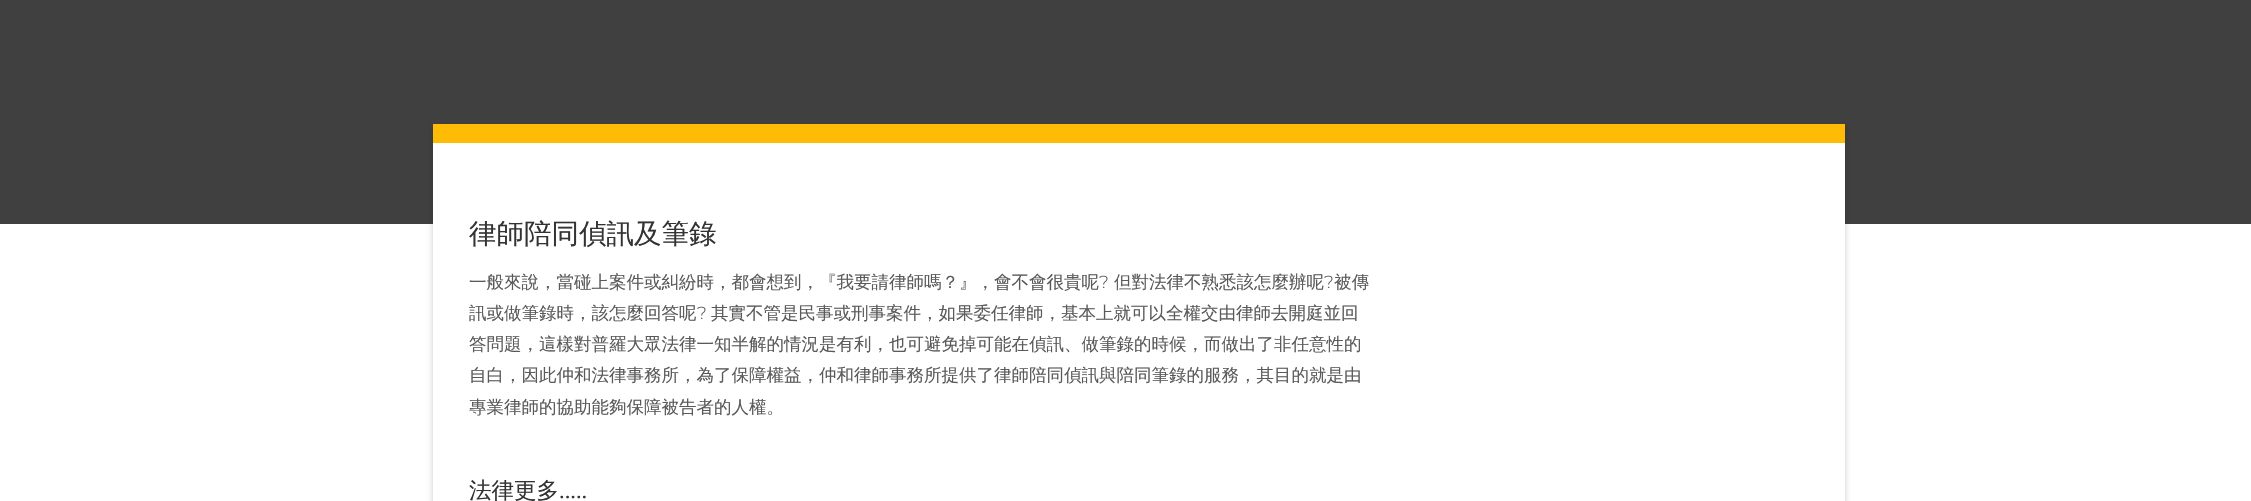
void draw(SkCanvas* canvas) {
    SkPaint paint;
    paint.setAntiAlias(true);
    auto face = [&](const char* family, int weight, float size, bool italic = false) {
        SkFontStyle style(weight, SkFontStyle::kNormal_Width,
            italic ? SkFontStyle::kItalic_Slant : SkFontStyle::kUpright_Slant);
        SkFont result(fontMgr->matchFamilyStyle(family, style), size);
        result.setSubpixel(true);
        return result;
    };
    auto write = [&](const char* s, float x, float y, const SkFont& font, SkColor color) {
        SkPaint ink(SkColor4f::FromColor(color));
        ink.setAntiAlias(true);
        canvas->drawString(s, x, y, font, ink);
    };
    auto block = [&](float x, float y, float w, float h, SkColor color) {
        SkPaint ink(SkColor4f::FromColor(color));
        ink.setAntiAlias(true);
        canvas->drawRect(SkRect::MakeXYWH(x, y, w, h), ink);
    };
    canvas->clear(SkColorSetRGB(64, 64, 64));
    block(0, 224, 2251, 277, SK_ColorWHITE);
    paint.setColor(SkColorSetARGB(51, 0, 0, 0));
    paint.setMaskFilter(SkMaskFilter::MakeBlur(kNormal_SkBlurStyle, 3));
    canvas->drawRect(SkRect::MakeXYWH(433, 128, 1412, 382), paint);
    paint.setMaskFilter(nullptr);
    block(433, 143, 1412, 358, SK_ColorWHITE);
    block(433, 124, 1412, 19, SkColorSetRGB(255, 187, 5));
    auto kFont1 = face("WenQuanYi Zen Hei", 500, 27.5f);
    write("律師陪同偵訊及筆錄", 469, 243, kFont1, SkColorSetRGB(51, 51, 51));
    auto kFont2 = face("WenQuanYi Zen Hei", 500, 17.5f);
    write("一般來說，當碰上案件或糾紛時，都會想到，『我要請律師嗎？』，會不會很貴呢", 469, 288, kFont2, SkColorSetRGB(90, 90, 90));
    auto kFont3 = face("Montserrat", 300, 17.5f);
    write("?", 1099, 288, kFont3, SkColorSetRGB(90, 90, 90));
    write("但對法律不熟悉該怎麼辦呢", 1114, 288, kFont2, SkColorSetRGB(90, 90, 90));
    write("?", 1324, 288, kFont3, SkColorSetRGB(90, 90, 90));
    write("被傳", 1334, 288, kFont2, SkColorSetRGB(90, 90, 90));
    write("訊或做筆錄時，該怎麼回答呢", 469, 319, kFont2, SkColorSetRGB(90, 90, 90));
    write("?", 697, 319, kFont3, SkColorSetRGB(90, 90, 90));
    write("其實不管是民事或刑事案件，如果委任律師，基本上就可以全權交由律師去開庭並回", 711, 319, kFont2, SkColorSetRGB(90, 90, 90));
    write("答問題，這樣對普羅大眾法律一知半解的情況是有利，也可避免掉可能在偵訊、做筆錄的時候，而做出了非任意性的", 469, 350, kFont2, SkColorSetRGB(90, 90, 90));
    write("自白，因此仲和法律事務所，為了保障權益，仲和律師事務所提供了律師陪同偵訊與陪同筆錄的服務，其目的就是由", 469, 381, kFont2, SkColorSetRGB(90, 90, 90));
    write("專業律師的協助能夠保障被告者的人權。", 469, 413, kFont2, SkColorSetRGB(90, 90, 90));
    auto kFont4 = face("WenQuanYi Zen Hei", 500, 22.5f);
    write("法律更多", 469, 498, kFont4, SkColorSetRGB(51, 51, 51));
    auto kFont5 = face("Liberation Serif", 400, 22.5f);
    write(".....", 559, 498, kFont5, SkColorSetRGB(51, 51, 51));
}
